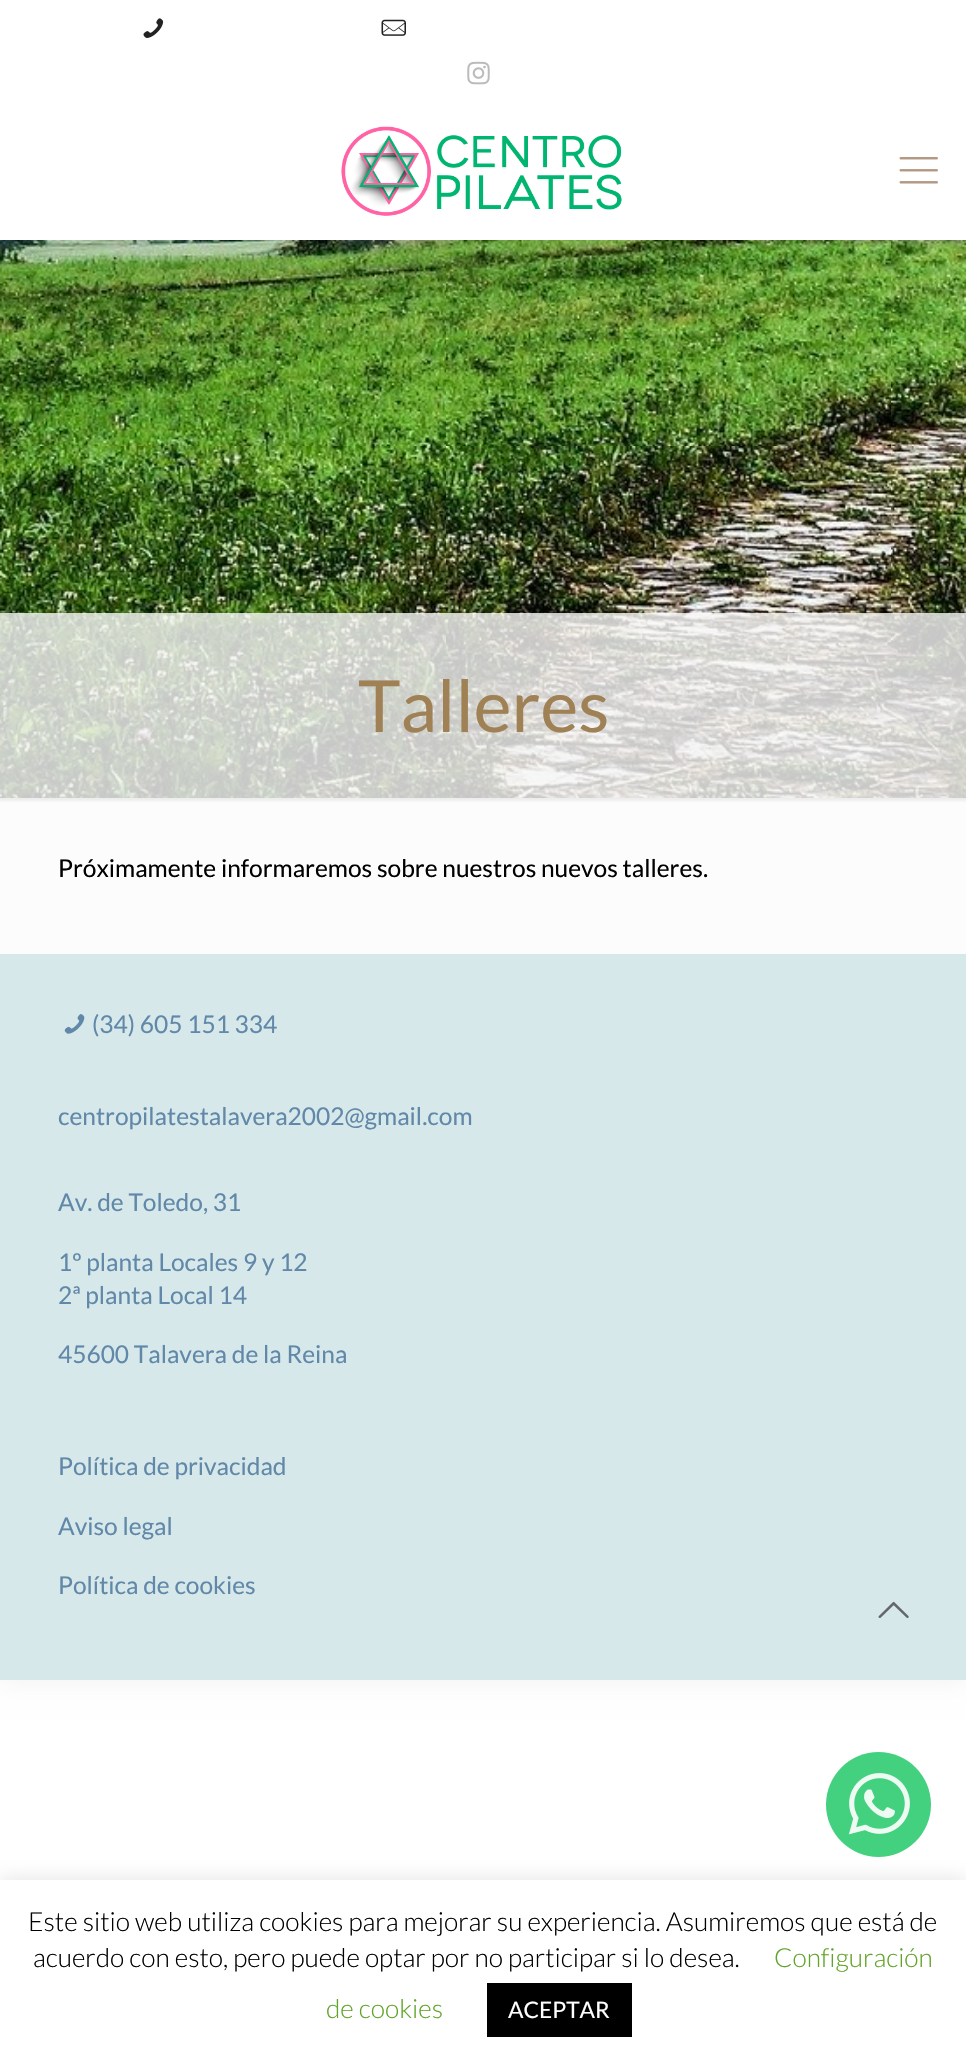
void draw(SkCanvas* canvas) {
    SkPaint paint;
    paint.setAntiAlias(true);
    auto face = [&](const char* family, int weight, float size, bool italic = false) {
        SkFontStyle style(weight, SkFontStyle::kNormal_Width,
            italic ? SkFontStyle::kItalic_Slant : SkFontStyle::kUpright_Slant);
        SkFont result(fontMgr->matchFamilyStyle(family, style), size);
        result.setSubpixel(true);
        return result;
    };
    auto write = [&](const char* s, float x, float y, const SkFont& font, SkColor color) {
        SkPaint ink(SkColor4f::FromColor(color));
        ink.setAntiAlias(true);
        canvas->drawString(s, x, y, font, ink);
    };
    auto block = [&](float x, float y, float w, float h, SkColor color) {
        SkPaint ink(SkColor4f::FromColor(color));
        ink.setAntiAlias(true);
        canvas->drawRect(SkRect::MakeXYWH(x, y, w, h), ink);
    };
    auto paste = [&](const char* path, float x, float y, float w, float h) {
        auto image = SkImages::DeferredFromEncodedData(SkData::MakeFromFileName(path));
        canvas->drawImageRect(image, SkRect::MakeXYWH(x, y, w, h), SkSamplingOptions());
    };
    canvas->clear(SK_ColorWHITE);
    paint.setColor(SkColorSetARGB(15, 0, 0, 0));
    paint.setMaskFilter(SkMaskFilter::MakeBlur(kNormal_SkBlurStyle, 13));
    canvas->drawRect(SkRect::MakeXYWH(0, 0, 966, 1680), paint);
    paint.setMaskFilter(nullptr);
    block(0, 798, 966, 156, SkColorSetRGB(252, 252, 252));
    paste("pic1.png", 0, 240, 966, 558);
    block(0, 0, 966, 240, SK_ColorWHITE);
    paste("pic2.png", 143, 18, 21, 20);
    paste("pic3.png", 381, 19, 25, 17);
    paste("pic4.png", 467, 61, 23, 24);
    paste("pic5.png", 341, 126, 281, 90);
    paste("pic6.png", 899, 157, 39, 27);
    block(0, 613, 966, 185, SkColorSetARGB(204, 247, 247, 247));
    auto kFont1 = face("Lato", 400, 72);
    write("Talleres", 358, 732, kFont1, SkColorSetRGB(159, 129, 85));
    paste("pic7.png", 0, 798, 966, 4);
    auto kFont2 = face("Lato", 400, 24.5f);
    write("Próximamente informaremos sobre nuestros nuevos talleres.", 58, 877, kFont2, SK_ColorBLACK);
    block(0, 954, 966, 726, SkColorSetRGB(214, 232, 234));
    paste("pic8.png", 64, 1014, 21, 20);
    write("(34) 605 151 334", 92, 1033, kFont2, SkColorSetRGB(97, 136, 168));
    write("centropilatestalavera2002@gmail.com", 58, 1125, kFont2, SkColorSetRGB(97, 136, 168));
    write("Av. de Toledo, 31", 58, 1211, kFont2, SkColorSetRGB(97, 136, 168));
    write("1º planta Locales 9 y 12", 58, 1271, kFont2, SkColorSetRGB(97, 136, 168));
    write("2ª planta Local 14", 58, 1304, kFont2, SkColorSetRGB(97, 136, 168));
    write("45600 Talavera de la Reina", 58, 1363, kFont2, SkColorSetRGB(97, 136, 168));
    write("Política de privacidad", 58, 1475, kFont2, SkColorSetRGB(97, 136, 168));
    write("Aviso legal", 58, 1535, kFont2, SkColorSetRGB(97, 136, 168));
    write("Política de cookies", 58, 1594, kFont2, SkColorSetRGB(97, 136, 168));
    paste("pic9.png", 878, 1601, 31, 17);
    paint.setColor(SkColorSetARGB(77, 172, 171, 171));
    paint.setMaskFilter(SkMaskFilter::MakeBlur(kNormal_SkBlurStyle, 9));
    canvas->drawRect(SkRect::MakeXYWH(0, 1878, 966, 187), paint);
    paint.setMaskFilter(nullptr);
    paint.setColor(SkColorSetRGB(67, 209, 127));
    canvas->drawCircle(878.5f, 1804.5f, 52.5f, paint);
    paste("pic10.png", 848, 1773, 62, 62);
    block(0, 1880, 966, 186, SK_ColorWHITE);
    auto kFont3 = face("Lato", 300, 26.25f);
    write("Este sitio web utiliza cookies para mejorar su experiencia. Asumiremos que está de", 28, 1931, kFont3, SK_ColorBLACK);
    write("acuerdo con esto, pero puede optar por no participar si lo desea.", 33, 1967, kFont3, SK_ColorBLACK);
    write("Configuración", 774, 1967, kFont3, SkColorSetRGB(98, 163, 41));
    write("de cookies", 326, 2018, kFont3, SkColorSetRGB(98, 163, 41));
    block(487, 1983, 145, 54, SK_ColorBLACK);
    auto kFont4 = face("Lato", 400, 22.75f);
    write("ACEPTAR", 508, 2018, kFont4, SK_ColorWHITE);
}
